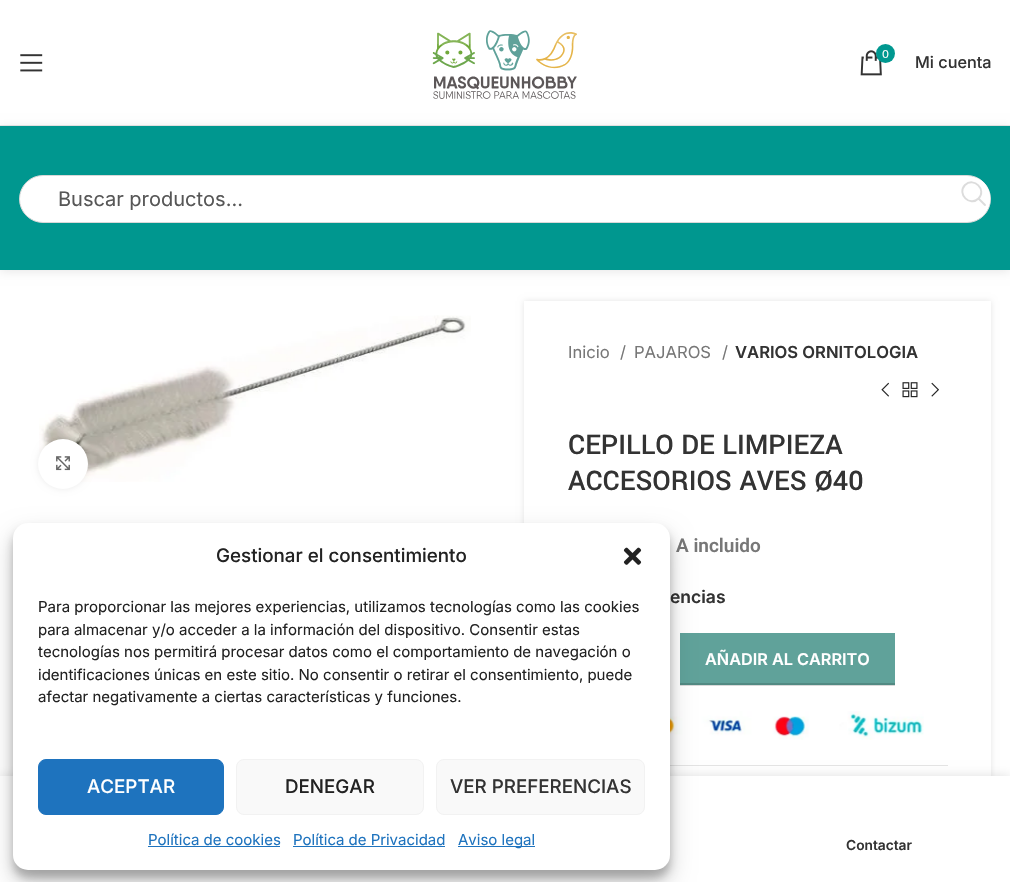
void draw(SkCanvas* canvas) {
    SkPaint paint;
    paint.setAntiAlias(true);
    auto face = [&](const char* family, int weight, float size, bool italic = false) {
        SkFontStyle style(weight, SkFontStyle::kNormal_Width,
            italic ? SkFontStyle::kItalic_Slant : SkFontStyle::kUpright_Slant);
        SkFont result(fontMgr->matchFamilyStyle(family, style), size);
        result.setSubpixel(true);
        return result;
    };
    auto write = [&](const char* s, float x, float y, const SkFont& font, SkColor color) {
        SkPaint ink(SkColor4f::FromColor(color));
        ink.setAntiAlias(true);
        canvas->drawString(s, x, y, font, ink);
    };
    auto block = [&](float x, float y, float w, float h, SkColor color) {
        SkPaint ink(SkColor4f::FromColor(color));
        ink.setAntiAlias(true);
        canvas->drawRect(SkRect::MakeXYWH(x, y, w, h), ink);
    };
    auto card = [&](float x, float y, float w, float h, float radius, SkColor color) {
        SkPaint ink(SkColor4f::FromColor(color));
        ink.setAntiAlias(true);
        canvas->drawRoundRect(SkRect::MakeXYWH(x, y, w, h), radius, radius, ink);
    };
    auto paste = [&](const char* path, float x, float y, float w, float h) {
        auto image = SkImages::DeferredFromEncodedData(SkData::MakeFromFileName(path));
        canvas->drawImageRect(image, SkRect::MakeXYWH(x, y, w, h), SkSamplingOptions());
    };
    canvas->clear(SK_ColorWHITE);
    block(0, 125, 1010, 1, SkColorSetRGB(232, 232, 232));
    paste("pic1.png", 20, 54, 23, 18);
    paste("pic2.png", 432, 30, 145, 69);
    paste("pic3.png", 860, 50, 22, 26);
    paint.setColor(SkColorSetRGB(0, 152, 144));
    canvas->drawCircle(885.5f, 53.5f, 9.5f, paint);
    auto kFont1 = face("Inter", 400, 11);
    write("0", 882, 58, kFont1, SK_ColorWHITE);
    auto kFont2 = face("Inter", 500, 16.25f);
    write("Mi cuenta", 915, 68, kFont2, SkColorSetRGB(51, 51, 51));
    paint.setColor(SkColorSetARGB(26, 0, 0, 0));
    paint.setMaskFilter(SkMaskFilter::MakeBlur(kNormal_SkBlurStyle, 5));
    canvas->drawRect(SkRect::MakeXYWH(0, 128, 1010, 143), paint);
    paint.setMaskFilter(nullptr);
    block(0, 126, 1010, 144, SkColorSetRGB(0, 151, 143));
    paint.setColor(SK_ColorWHITE);
    canvas->drawRoundRect(SkRect::MakeXYWH(19.5f, 175.5f, 971, 47), 23.5f, 23.5f, paint);
    paint.setStyle(SkPaint::kStroke_Style);
    paint.setStrokeWidth(1);
    paint.setColor(SkColorSetRGB(216, 216, 216));
    canvas->drawRoundRect(SkRect::MakeXYWH(19.5f, 175.5f, 971, 47), 23.5f, 23.5f, paint);
    auto kFont3 = face("Inter", 400, 20);
    write("Buscar productos...", 58, 206, kFont3, SkColorSetRGB(87, 87, 87));
    paint.setStyle(SkPaint::kFill_Style);
    paint.setColor(SK_ColorWHITE);
    canvas->drawPath(SkPathBuilder().moveTo(974, 178).cubicTo(977, 178, 979, 179, 982, 181).cubicTo(992, 189, 993, 204, 984, 214).cubicTo(982, 216, 978, 219, 974, 218).cubicTo(952, 217, 954, 178, 974, 178).close().detach(), paint);
    canvas->save();
    canvas->clipPath(SkPathBuilder().moveTo(42.5f, 176).lineTo(967.5f, 176).cubicTo(980, 176, 990, 186, 990, 198.5f).cubicTo(990, 211, 980, 221, 967.5f, 221).lineTo(42.5f, 221).cubicTo(30, 221, 20, 211, 20, 198.5f).cubicTo(20, 186, 30, 176, 42.5f, 176).close().detach(), true);
    paint.setStyle(SkPaint::kStroke_Style);
    paint.setStrokeWidth(1.2f);
    canvas->drawPath(SkPathBuilder().moveTo(974, 178).cubicTo(994.5f, 178, 994.5f, 218, 974, 218).cubicTo(953, 218, 953, 178, 974, 178).close().detach(), paint);
    canvas->restore();
    paint.setStrokeWidth(1.9f);
    paint.setStrokeCap(SkPaint::kRound_Cap);
    paint.setStrokeJoin(SkPaint::kRound_Join);
    paint.setColor(SkColorSetRGB(220, 220, 220));
    canvas->drawPath(SkPathBuilder().moveTo(985, 205).lineTo(978.5f, 198.5f).moveTo(978.5f, 198.5f).cubicTo(987, 190, 974, 176.5f, 965, 185).cubicTo(956.5f, 194, 970, 207, 978.5f, 198.5f).close().detach(), paint);
    paste("pic4.png", 39, 315, 432, 167);
    paint.setStyle(SkPaint::kFill_Style);
    paint.setColor(SkColorSetARGB(20, 0, 0, 0));
    paint.setMaskFilter(SkMaskFilter::MakeBlur(kNormal_SkBlurStyle, 3));
    canvas->drawRoundRect(SkRect::MakeXYWH(38, 439, 50, 50), 25, 25, paint);
    paint.setMaskFilter(nullptr);
    paint.setColor(SK_ColorWHITE);
    canvas->drawCircle(63, 464, 25, paint);
    paste("pic5.png", 56, 456, 14, 15);
    paint.setColor(SkColorSetARGB(26, 0, 0, 0));
    paint.setMaskFilter(SkMaskFilter::MakeBlur(kNormal_SkBlurStyle, 3));
    canvas->drawRect(SkRect::MakeXYWH(524, 301, 467, 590), paint);
    paint.setMaskFilter(nullptr);
    block(524, 301, 467, 475, SK_ColorWHITE);
    block(680, 685, 215, 1, SkColorSetRGB(217, 217, 217));
    auto kFont4 = face("Inter", 400, 16.6f);
    write("Inicio", 568, 358, kFont4, SkColorSetRGB(119, 119, 119));
    write("/", 620, 358, kFont4, SkColorSetRGB(119, 119, 119));
    write("PAJAROS", 634, 358, kFont4, SkColorSetRGB(119, 119, 119));
    write("/", 722, 358, kFont4, SkColorSetRGB(119, 119, 119));
    auto kFont5 = face("Inter", 600, 16.6f);
    write("VARIOS ORNITOLOGIA", 735, 358, kFont5, SkColorSetRGB(51, 51, 51));
    paste("pic6.png", 881, 382, 8, 15);
    paste("pic7.png", 902, 382, 16, 16);
    paste("pic8.png", 931, 382, 8, 15);
    auto kFont6 = face("Yantramanav", 500, 30);
    write("CEPILLO DE LIMPIEZA", 568, 454, kFont6, SkColorSetRGB(51, 51, 51));
    write("ACCESORIOS AVES Ø40", 568, 490, kFont6, SkColorSetRGB(51, 51, 51));
    auto kFont7 = face("Roboto", 600, 19);
    write("A incluido", 676, 552, kFont7, SkColorSetRGB(119, 119, 119));
    auto kFont8 = face("Inter", 600, 17.5f);
    write("encias", 670, 603, kFont8, SkColorSetRGB(51, 51, 51));
    block(680, 633, 215, 50, SkColorSetRGB(96, 162, 154));
    block(680, 683, 215, 2, SkColorSetRGB(82, 138, 131));
    auto kFont9 = face("Inter", 600, 16.25f);
    write("AÑADIR AL CARRITO", 705, 665, kFont9, SK_ColorWHITE);
    paste("pic9.png", 670, 711, 254, 29);
    block(670, 765, 278, 1, SkColorSetRGB(228, 228, 228));
    paint.setColor(SkColorSetARGB(31, 0, 0, 0));
    paint.setMaskFilter(SkMaskFilter::MakeBlur(kNormal_SkBlurStyle, 5.5f));
    canvas->drawRect(SkRect::MakeXYWH(0, 776, 1010, 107), paint);
    paint.setMaskFilter(nullptr);
    block(0, 776, 1010, 106, SK_ColorWHITE);
    paint.setColor(SkColorSetARGB(59, 0, 0, 0));
    paint.setMaskFilter(SkMaskFilter::MakeBlur(kNormal_SkBlurStyle, 4));
    canvas->drawRoundRect(SkRect::MakeXYWH(13, 530, 657, 348), 15, 15, paint);
    paint.setMaskFilter(nullptr);
    paint.setColor(SkColorSetARGB(48, 0, 0, 0));
    paint.setMaskFilter(SkMaskFilter::MakeBlur(kNormal_SkBlurStyle, 12.5f));
    canvas->drawRoundRect(SkRect::MakeXYWH(13, 535, 657, 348), 15, 15, paint);
    paint.setMaskFilter(nullptr);
    card(13, 523, 657, 347, 15, SK_ColorWHITE);
    auto kFont10 = face("Inter", 500, 18.75f);
    write("Gestionar el consentimiento", 216, 562, kFont10, SkColorSetRGB(34, 34, 34));
    paste("pic10.png", 623, 547, 19, 18);
    auto kFont11 = face("Inter", 400, 15);
    write("Para proporcionar las mejores experiencias, utilizamos tecnologías como las cookies", 38, 612, kFont11, SkColorSetRGB(34, 34, 34));
    write("para almacenar y/o acceder a la información del dispositivo. Consentir estas", 38, 635, kFont11, SkColorSetRGB(34, 34, 34));
    write("tecnologías nos permitirá procesar datos como el comportamiento de navegación o", 38, 657, kFont11, SkColorSetRGB(34, 34, 34));
    write("identificaciones únicas en este sitio. No consentir o retirar el consentimiento, puede", 38, 680, kFont11, SkColorSetRGB(34, 34, 34));
    write("afectar negativamente a ciertas características y funciones.", 38, 702, kFont11, SkColorSetRGB(34, 34, 34));
    paint.setColor(SkColorSetRGB(30, 115, 190));
    canvas->drawRoundRect(SkRect::MakeXYWH(38.5f, 759.5f, 185, 55), 7.5f, 7.5f, paint);
    paint.setStyle(SkPaint::kStroke_Style);
    paint.setStrokeWidth(1);
    paint.setStrokeCap(SkPaint::kButt_Cap);
    paint.setStrokeJoin(SkPaint::kMiter_Join);
    canvas->drawRoundRect(SkRect::MakeXYWH(38.5f, 759.5f, 185, 55), 7.5f, 7.5f, paint);
    write("ACEPTAR", 87, 793, kFont10, SK_ColorWHITE);
    paint.setStyle(SkPaint::kFill_Style);
    paint.setColor(SkColorSetRGB(249, 249, 249));
    canvas->drawRoundRect(SkRect::MakeXYWH(236.5f, 759.5f, 187, 55), 7.5f, 7.5f, paint);
    paint.setStyle(SkPaint::kStroke_Style);
    paint.setColor(SkColorSetRGB(242, 242, 242));
    canvas->drawRoundRect(SkRect::MakeXYWH(236.5f, 759.5f, 187, 55), 7.5f, 7.5f, paint);
    write("DENEGAR", 285, 793, kFont10, SkColorSetRGB(34, 34, 34));
    paint.setStyle(SkPaint::kFill_Style);
    paint.setColor(SkColorSetRGB(249, 249, 249));
    canvas->drawRoundRect(SkRect::MakeXYWH(436.5f, 759.5f, 208, 55), 7.5f, 7.5f, paint);
    paint.setStyle(SkPaint::kStroke_Style);
    paint.setColor(SkColorSetRGB(242, 242, 242));
    canvas->drawRoundRect(SkRect::MakeXYWH(436.5f, 759.5f, 208, 55), 7.5f, 7.5f, paint);
    write("VER PREFERENCIAS", 450, 793, kFont10, SkColorSetRGB(51, 51, 51));
    write("Política de cookies", 148, 845, kFont11, SkColorSetRGB(30, 115, 190));
    block(148, 846, 132, 1, SkColorSetRGB(30, 115, 190));
    write("Política de Privacidad", 293, 845, kFont11, SkColorSetRGB(30, 115, 190));
    block(293, 846, 152, 1, SkColorSetRGB(30, 115, 190));
    block(458, 846, 77, 1, SkColorSetRGB(30, 115, 190));
    write("Aviso legal", 458, 845, kFont11, SkColorSetRGB(30, 115, 190));
    auto kFont12 = face("Inter", 600, 13.75f);
    write("Contactar", 846, 850, kFont12, SkColorSetRGB(51, 51, 51));
}
